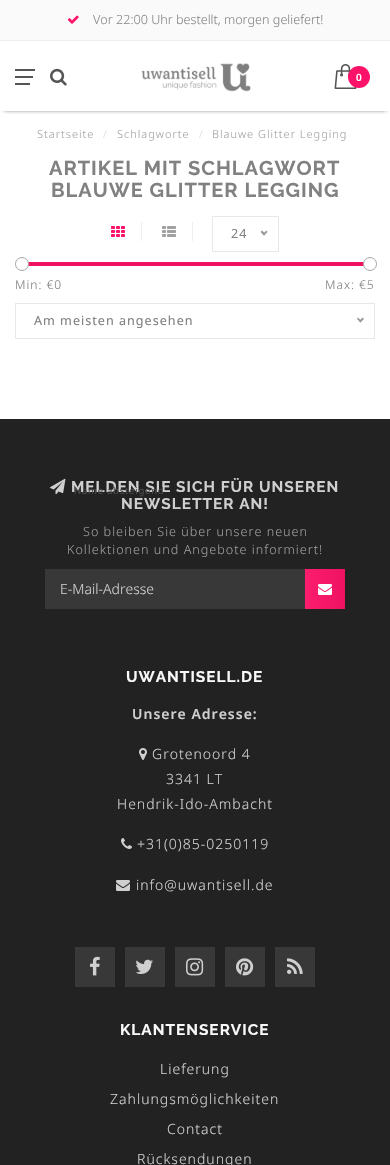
void draw(SkCanvas* canvas) {
    SkPaint paint;
    paint.setAntiAlias(true);
    auto face = [&](const char* family, int weight, float size, bool italic = false) {
        SkFontStyle style(weight, SkFontStyle::kNormal_Width,
            italic ? SkFontStyle::kItalic_Slant : SkFontStyle::kUpright_Slant);
        SkFont result(fontMgr->matchFamilyStyle(family, style), size);
        result.setSubpixel(true);
        return result;
    };
    auto write = [&](const char* s, float x, float y, const SkFont& font, SkColor color) {
        SkPaint ink(SkColor4f::FromColor(color));
        ink.setAntiAlias(true);
        canvas->drawString(s, x, y, font, ink);
    };
    auto writeSpaced = [&](const char* s, float x, float y, const SkFont& font, const SkPaint& ink, float letter, float word) {
        std::vector<SkGlyphID> glyphs(font.countText(s, strlen(s), SkTextEncoding::kUTF8));
        std::vector<float> xs(glyphs.size());
        font.textToGlyphs(s, strlen(s), SkTextEncoding::kUTF8, glyphs);
        font.getXPos(glyphs, xs, x);
        float extra = 0;
        for (size_t i = 0; i < glyphs.size(); i++) {
            xs[i] += extra;
            extra += letter + word * (glyphs[i] == font.unicharToGlyph(' '));
        }
        canvas->drawTextBlob(SkTextBlob::MakeFromPosHGlyphs(glyphs, xs, y, font), 0, 0, ink);
    };
    auto block = [&](float x, float y, float w, float h, SkColor color) {
        SkPaint ink(SkColor4f::FromColor(color));
        ink.setAntiAlias(true);
        canvas->drawRect(SkRect::MakeXYWH(x, y, w, h), ink);
    };
    auto paste = [&](const char* path, float x, float y, float w, float h) {
        auto image = SkImages::DeferredFromEncodedData(SkData::MakeFromFileName(path));
        canvas->drawImageRect(image, SkRect::MakeXYWH(x, y, w, h), SkSamplingOptions());
    };
    canvas->clear(SK_ColorWHITE);
    block(0, 0, 390, 40, SkColorSetRGB(250, 250, 250));
    block(0, 40, 390, 1, SkColorSetRGB(238, 238, 238));
    paste("pic1.png", 67, 15, 12, 9);
    auto kFont1 = face("Noto Sans", 300, 12.6f);
    write("Vor 22:00 Uhr bestellt, morgen geliefert!", 93, 24, kFont1, SkColorSetRGB(136, 136, 136));
    canvas->save();
    canvas->clipRect(SkRect::MakeXYWH(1, 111, 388, 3));
    paint.setColor(SK_ColorBLACK);
    paint.setMaskFilter(SkMaskFilter::MakeBlur(kNormal_SkBlurStyle, 2.5f));
    canvas->drawRect(SkRect::MakeXYWH(4, 47, 382, 62), paint);
    paint.setMaskFilter(nullptr);
    canvas->restore();
    block(15, 69, 20, 2, SkColorSetRGB(85, 85, 85));
    block(15, 76, 18, 2, SkColorSetRGB(85, 85, 85));
    block(15, 83, 15, 2, SkColorSetRGB(85, 85, 85));
    paste("pic2.png", 50, 68, 17, 18);
    paste("pic3.png", 141, 63, 110, 29);
    paste("pic4.png", 334, 64, 23, 25);
    paint.setColor(SkColorSetRGB(252, 18, 104));
    canvas->drawCircle(359, 77, 11, paint);
    auto kFont2 = face("Noto Sans", 600, 10);
    paint.setColor(SK_ColorWHITE);
    writeSpaced("0", 356, 81, kFont2, paint, 1, 0);
    auto kFont3 = face("Noto Sans", 300, 11);
    paint.setColor(SkColorSetRGB(165, 165, 165));
    writeSpaced("Startseite", 37, 138, kFont3, paint, 1, 0);
    paint.setColor(SkColorSetRGB(221, 221, 221));
    writeSpaced("/", 103, 138, kFont3, paint, 1, 0);
    paint.setColor(SkColorSetRGB(165, 165, 165));
    writeSpaced("Schlagworte", 117, 138, kFont3, paint, 1, 0);
    paint.setColor(SkColorSetRGB(221, 221, 221));
    writeSpaced("/", 199, 138, kFont3, paint, 1, 0);
    paint.setColor(SkColorSetRGB(165, 165, 165));
    writeSpaced("Blauwe Glitter Legging", 212, 138, kFont3, paint, 1, 0);
    auto kFont4 = face("Raleway", 700, 20);
    paint.setColor(SkColorSetRGB(129, 129, 129));
    writeSpaced("ARTIKEL MIT SCHLAGWORT", 49, 175, kFont4, paint, 1, 0);
    writeSpaced("BLAUWE GLITTER LEGGING", 51, 197, kFont4, paint, 1, 0);
    block(141, 222, 1, 19, SkColorSetRGB(238, 238, 238));
    paste("pic5.png", 111, 226, 14, 11);
    block(192, 222, 1, 19, SkColorSetRGB(238, 238, 238));
    paste("pic6.png", 162, 226, 14, 11);
    paint.setStyle(SkPaint::kStroke_Style);
    paint.setStrokeWidth(1);
    paint.setColor(SkColorSetRGB(232, 232, 232));
    canvas->drawRect(SkRect::MakeXYWH(212.5f, 216.5f, 66, 35), paint);
    auto kFont5 = face("Noto Sans", 400, 12.6f);
    paint.setStyle(SkPaint::kFill_Style);
    paint.setColor(SkColorSetRGB(129, 129, 129));
    writeSpaced("24", 231, 238, kFont5, paint, 1, 0);
    paint.setColor(SkColorSetRGB(153, 153, 153));
    canvas->drawPath(SkPathBuilder().moveTo(266.5f, 230.5f).lineTo(267.5f, 232).lineTo(264, 235.5f).lineTo(262.5f, 234).close().detach(), paint);
    canvas->drawPath(SkPathBuilder().moveTo(262, 230.5f).lineTo(265.5f, 234).lineTo(264, 235.5f).lineTo(260.5f, 232).close().detach(), paint);
    block(25, 262, 339, 4, SkColorSetRGB(239, 17, 98));
    paint.setColor(SK_ColorWHITE);
    canvas->drawCircle(22, 264, 6.5f, paint);
    paint.setStyle(SkPaint::kStroke_Style);
    paint.setColor(SkColorSetRGB(165, 165, 165));
    canvas->drawCircle(22, 264, 6.5f, paint);
    paint.setStyle(SkPaint::kFill_Style);
    paint.setColor(SK_ColorWHITE);
    canvas->drawCircle(370, 264, 6.5f, paint);
    paint.setStyle(SkPaint::kStroke_Style);
    paint.setColor(SkColorSetRGB(165, 165, 165));
    canvas->drawCircle(370, 264, 6.5f, paint);
    auto kFont6 = face("Noto Sans", 300, 12);
    paint.setStyle(SkPaint::kFill_Style);
    paint.setColor(SkColorSetRGB(129, 129, 129));
    writeSpaced("Min: €0", 15, 289, kFont6, paint, 1, 0);
    writeSpaced("Max: €5", 325, 289, kFont6, paint, 1, 0);
    paint.setStyle(SkPaint::kStroke_Style);
    paint.setColor(SkColorSetRGB(232, 232, 232));
    canvas->drawRect(SkRect::MakeXYWH(15.5f, 303.5f, 359, 35), paint);
    paint.setStyle(SkPaint::kFill_Style);
    paint.setColor(SkColorSetRGB(129, 129, 129));
    writeSpaced("Am meisten angesehen", 34, 325, kFont5, paint, 1, 0);
    paint.setColor(SkColorSetRGB(153, 153, 153));
    canvas->drawPath(SkPathBuilder().moveTo(362.5f, 317.5f).lineTo(364, 319).lineTo(360.5f, 322.5f).lineTo(359, 321).close().detach(), paint);
    canvas->drawPath(SkPathBuilder().moveTo(358, 317.5f).lineTo(361.5f, 321).lineTo(360.5f, 322.5f).lineTo(357, 319).close().detach(), paint);
    block(0, 419, 390, 746, SkColorSetRGB(34, 34, 34));
    auto kFont7 = face("Raleway", 700, 15.4f);
    paint.setColor(SkColorSetRGB(207, 207, 207));
    writeSpaced("MELDEN SIE SICH FÜR UNSEREN", 71, 492, kFont7, paint, 1, 0);
    auto kFont8 = face("Noto Sans", 400, 9.5f);
    paint.setColor(SkColorSetRGB(76, 76, 76));
    writeSpaced("Name absteigend", 74, 494, kFont8, paint, 0.75f, 0);
    paste("pic7.png", 50, 478, 16, 17);
    paint.setColor(SkColorSetRGB(207, 207, 207));
    writeSpaced("NEWSLETTER AN!", 121, 509, kFont7, paint, 1, 0);
    paint.setColor(SkColorSetRGB(155, 155, 155));
    writeSpaced("So bleiben Sie über unsere neuen", 83, 536, kFont1, paint, 1, 0);
    writeSpaced("Kollektionen und Angebote informiert!", 67, 554, kFont1, paint, 1, 0);
    block(45, 569, 260, 40, SkColorSetRGB(56, 56, 56));
    auto kFont9 = face("Noto Sans", 300, 14);
    write("E-Mail-Adresse", 60, 594, kFont9, SkColorSetRGB(207, 207, 207));
    {
        const SkColor colors[] = {SkColorSetRGB(252, 29, 111), SkColorSetRGB(239, 17, 98)};
        const float stops[] = {0, 1};
        const SkPoint ends[] = {{305, 589}, {345, 589}};
        paint.setShader(SkGradientShader::MakeLinear(ends, colors, stops, 2, SkTileMode::kClamp));
        paint.setAlpha(255);
    }
    canvas->drawRect(SkRect::MakeXYWH(305, 569, 40, 40), paint);
    paste("pic8.png", 318, 584, 14, 11);
    paint.setShader(nullptr);
    paint.setColor(SkColorSetRGB(249, 249, 249));
    writeSpaced("UWANTISELL.DE", 126, 682, kFont7, paint, 1, 0);
    auto kFont10 = face("Noto Sans", 600, 14);
    paint.setColor(SkColorSetRGB(207, 207, 207));
    writeSpaced("Unsere Adresse:", 132, 719, kFont10, paint, 1, 0);
    paste("pic9.png", 139, 748, 8, 12);
    writeSpaced("Grotenoord 4", 152, 759, kFont9, paint, 1, 0);
    writeSpaced("3341 LT", 166, 784, kFont9, paint, 1, 0);
    writeSpaced("Hendrik-Ido-Ambacht", 117, 809, kFont9, paint, 1, 0);
    paste("pic10.png", 121, 838, 11, 11);
    writeSpaced("+31(0)85-0250119", 137, 849, kFont9, paint, 1, 0);
    paste("pic11.png", 116, 880, 14, 11);
    writeSpaced("info@uwantisell.de", 136, 890, kFont9, paint, 1, 0);
    block(75, 947, 40, 40, SkColorSetRGB(56, 56, 56));
    paste("pic12.png", 90, 956, 10, 20);
    block(125, 947, 40, 40, SkColorSetRGB(56, 56, 56));
    paste("pic13.png", 135, 959, 18, 15);
    block(175, 947, 40, 40, SkColorSetRGB(56, 56, 56));
    paste("pic14.png", 186, 958, 18, 18);
    block(225, 947, 40, 40, SkColorSetRGB(56, 56, 56));
    paste("pic15.png", 236, 958, 18, 18);
    block(275, 947, 40, 40, SkColorSetRGB(56, 56, 56));
    paste("pic16.png", 287, 958, 16, 16);
    paint.setColor(SkColorSetRGB(249, 249, 249));
    writeSpaced("KLANTENSERVICE", 120, 1035, kFont7, paint, 1, 0);
    paint.setColor(SkColorSetRGB(207, 207, 207));
    writeSpaced("Lieferung", 160, 1074, kFont9, paint, 1, 0);
    writeSpaced("Zahlungsmöglichkeiten", 110, 1104, kFont9, paint, 1, 0);
    writeSpaced("Contact", 167, 1134, kFont9, paint, 1, 0);
    writeSpaced("Rücksendungen", 137, 1164, kFont9, paint, 1, 0);
}
